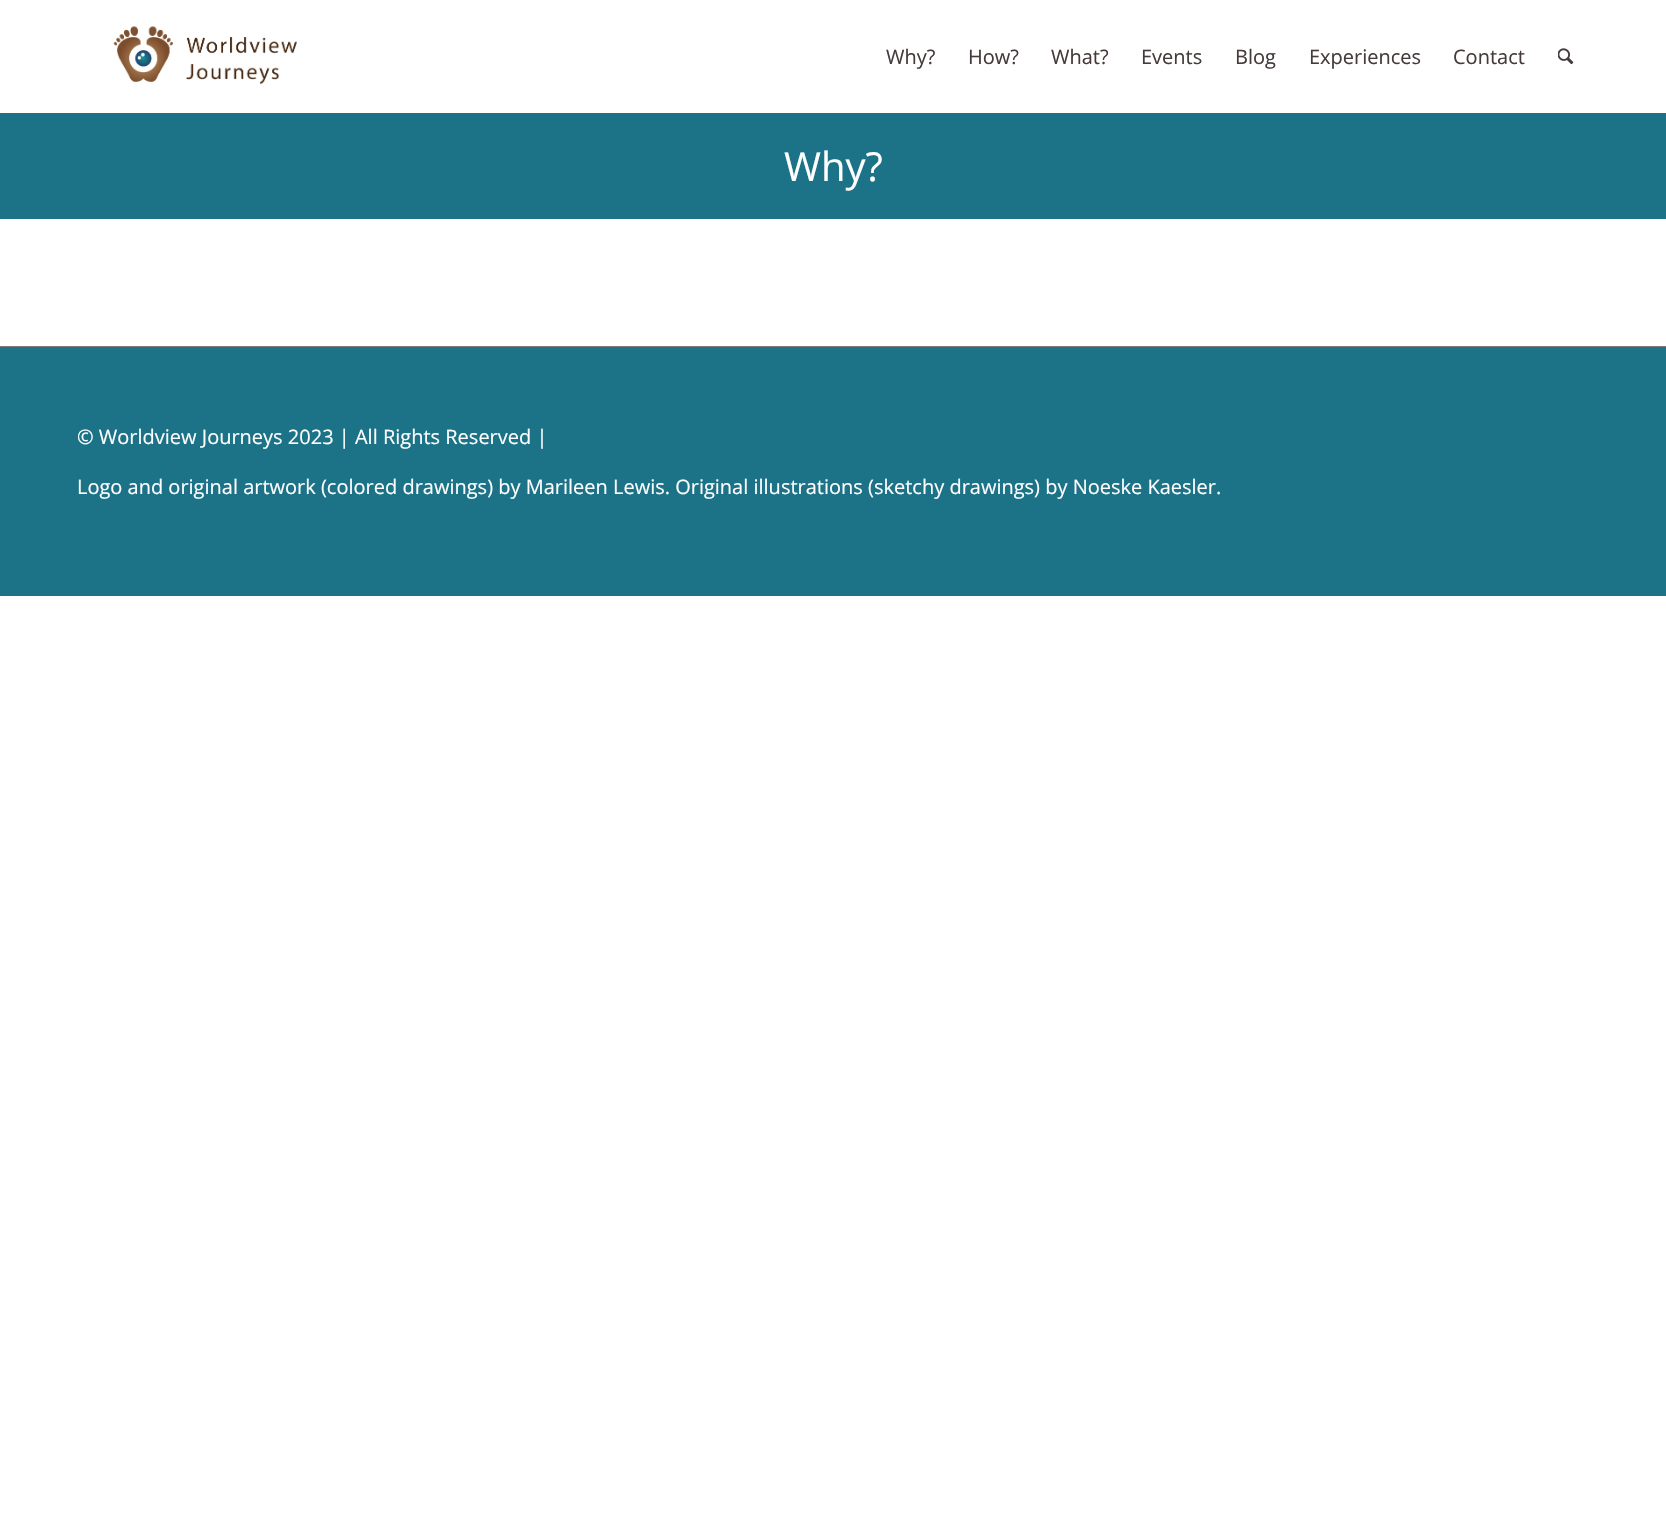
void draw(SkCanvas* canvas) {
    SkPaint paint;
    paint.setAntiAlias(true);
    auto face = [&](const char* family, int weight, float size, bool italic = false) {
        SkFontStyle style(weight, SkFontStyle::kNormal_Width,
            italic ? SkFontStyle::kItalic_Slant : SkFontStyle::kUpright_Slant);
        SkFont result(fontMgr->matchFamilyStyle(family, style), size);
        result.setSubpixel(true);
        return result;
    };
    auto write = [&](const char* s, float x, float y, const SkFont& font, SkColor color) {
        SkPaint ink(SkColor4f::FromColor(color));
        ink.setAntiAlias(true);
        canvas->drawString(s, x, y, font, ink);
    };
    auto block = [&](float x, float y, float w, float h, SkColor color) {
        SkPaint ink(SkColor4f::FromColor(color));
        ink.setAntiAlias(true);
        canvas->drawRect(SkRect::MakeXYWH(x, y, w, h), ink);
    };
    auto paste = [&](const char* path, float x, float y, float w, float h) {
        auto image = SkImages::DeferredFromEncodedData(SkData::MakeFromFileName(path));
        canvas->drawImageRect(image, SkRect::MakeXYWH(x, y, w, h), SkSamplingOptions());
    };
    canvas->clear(SK_ColorWHITE);
    paste("pic1.png", 113, 26, 184, 59);
    auto kFont1 = face("Open Sans", 400, 20);
    write("Why?", 886, 64, kFont1, SkColorSetRGB(69, 59, 59));
    write("How?", 968, 64, kFont1, SkColorSetRGB(69, 59, 59));
    write("What?", 1051, 64, kFont1, SkColorSetRGB(69, 59, 59));
    write("Events", 1141, 64, kFont1, SkColorSetRGB(69, 59, 59));
    write("Blog", 1235, 64, kFont1, SkColorSetRGB(69, 59, 59));
    write("Experiences", 1309, 64, kFont1, SkColorSetRGB(69, 59, 59));
    write("Contact", 1453, 64, kFont1, SkColorSetRGB(69, 59, 59));
    paste("pic2.png", 1558, 48, 16, 17);
    block(0, 113, 1666, 106, SkColorSetRGB(28, 115, 135));
    auto kFont2 = face("Open Sans", 400, 40);
    write("Why?", 784, 181, kFont2, SK_ColorWHITE);
    block(0, 347, 1666, 249, SkColorSetRGB(28, 115, 135));
    block(0, 346, 1666, 1, SkColorSetRGB(128, 120, 119));
    write("© Worldview Journeys 2023 | All Rights Reserved |", 77, 444, kFont1, SK_ColorWHITE);
    write("Logo and original artwork (colored drawings) by Marileen Lewis. Original illustrations (sketchy drawings) by Noeske Kaesler.", 77, 494, kFont1, SK_ColorWHITE);
}
